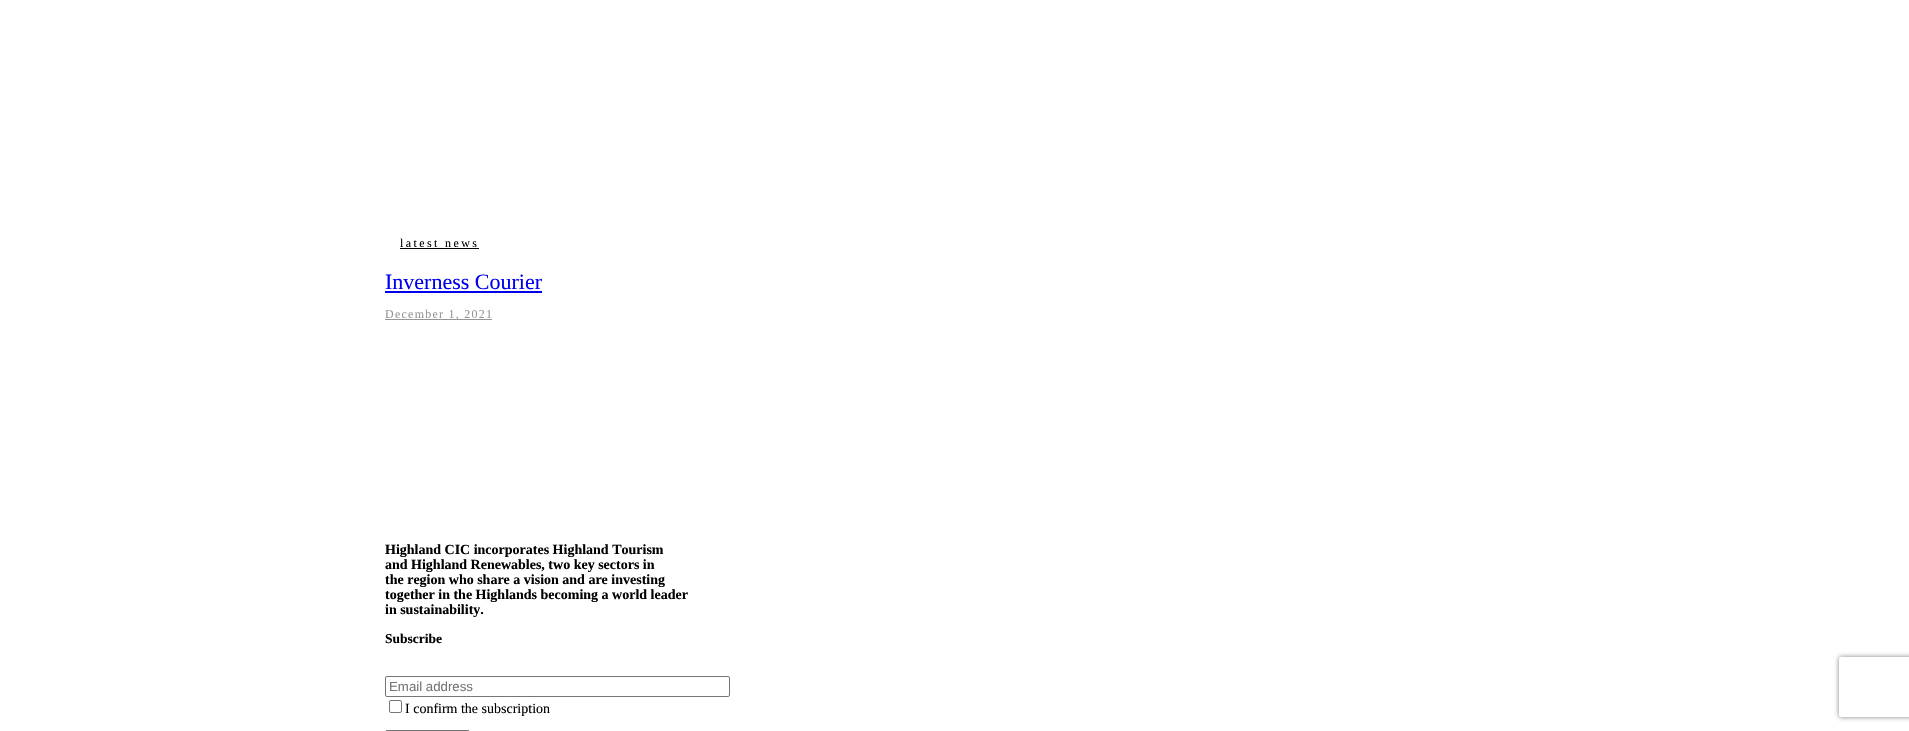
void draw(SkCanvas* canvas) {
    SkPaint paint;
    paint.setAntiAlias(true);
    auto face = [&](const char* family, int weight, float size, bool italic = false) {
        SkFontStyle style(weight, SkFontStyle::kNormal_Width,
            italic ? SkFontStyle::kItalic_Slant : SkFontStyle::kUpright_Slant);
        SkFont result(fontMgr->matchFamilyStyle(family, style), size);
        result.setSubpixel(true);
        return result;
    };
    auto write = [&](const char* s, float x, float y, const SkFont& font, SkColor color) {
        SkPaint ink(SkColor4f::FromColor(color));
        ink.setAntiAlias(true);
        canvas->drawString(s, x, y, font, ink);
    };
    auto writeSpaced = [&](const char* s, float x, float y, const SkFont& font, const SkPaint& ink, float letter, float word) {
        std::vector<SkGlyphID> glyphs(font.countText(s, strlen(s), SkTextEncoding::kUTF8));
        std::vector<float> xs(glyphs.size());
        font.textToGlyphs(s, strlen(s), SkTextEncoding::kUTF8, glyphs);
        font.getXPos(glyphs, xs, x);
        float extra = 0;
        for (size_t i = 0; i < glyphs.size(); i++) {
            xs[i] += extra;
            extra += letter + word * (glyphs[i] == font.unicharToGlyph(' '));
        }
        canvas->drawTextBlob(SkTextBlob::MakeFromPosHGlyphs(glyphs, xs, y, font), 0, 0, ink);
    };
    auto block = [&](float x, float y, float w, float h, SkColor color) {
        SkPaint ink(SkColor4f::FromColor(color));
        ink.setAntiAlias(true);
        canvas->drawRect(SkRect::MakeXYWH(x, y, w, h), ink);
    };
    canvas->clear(SK_ColorWHITE);
    auto kFont1 = face("Liberation Serif", 400, 12);
    paint.setColor(SK_ColorBLACK);
    writeSpaced("latest news", 400, 247, kFont1, paint, 2.4f, 0);
    block(400, 248, 79, 1, SK_ColorBLACK);
    auto kFont2 = face("Liberation Serif", 400, 22);
    write("Inverness Courier", 385, 289, kFont2, SkColorSetRGB(0, 0, 238));
    block(385, 291, 157, 2, SkColorSetRGB(0, 0, 238));
    block(385, 319, 107, 1, SkColorSetRGB(149, 149, 149));
    paint.setColor(SkColorSetRGB(149, 149, 149));
    writeSpaced("December 1, 2021", 385, 318, kFont1, paint, 1.25f, 0);
    auto kFont3 = face("Liberation Serif", 700, 14);
    write("Highland CIC incorporates Highland Tourism", 385, 554, kFont3, SK_ColorBLACK);
    write("and Highland Renewables, two key sectors in", 385, 569, kFont3, SK_ColorBLACK);
    write("the region who share a vision and are investing", 385, 584, kFont3, SK_ColorBLACK);
    write("together in the Highlands becoming a world leader", 385, 599, kFont3, SK_ColorBLACK);
    write("in sustainability.", 385, 614, kFont3, SK_ColorBLACK);
    auto kFont4 = face("Liberation Serif", 700, 13.5f);
    write("Subscribe", 385, 643, kFont4, SK_ColorBLACK);
    paint.setStyle(SkPaint::kStroke_Style);
    paint.setStrokeWidth(1);
    paint.setColor(SkColorSetRGB(118, 118, 118));
    canvas->drawRoundRect(SkRect::MakeXYWH(385.5f, 676.5f, 344, 20), 1.5f, 1.5f, paint);
    auto kFont5 = face("Liberation Sans", 400, 13.25f);
    write("Email address", 389, 691, kFont5, SkColorSetRGB(117, 117, 117));
    canvas->drawRoundRect(SkRect::MakeXYWH(389.5f, 700.5f, 12, 12), 1.5f, 1.5f, paint);
    auto kFont6 = face("Liberation Serif", 400, 14);
    write("I confirm the subscription", 405, 713, kFont6, SK_ColorBLACK);
    canvas->drawRoundRect(SkRect::MakeXYWH(385.5f, 730.5f, 84, 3), 1.5f, 1.5f, paint);
    canvas->save();
    canvas->clipPath(SkPathBuilder(SkPathFillType::kEvenOdd).moveTo(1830, 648).lineTo(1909, 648).lineTo(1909, 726).lineTo(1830, 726).close().moveTo(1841, 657).lineTo(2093, 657).cubicTo(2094, 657, 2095, 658, 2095, 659).lineTo(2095, 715).cubicTo(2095, 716, 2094, 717, 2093, 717).lineTo(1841, 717).cubicTo(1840, 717, 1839, 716, 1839, 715).lineTo(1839, 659).cubicTo(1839, 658, 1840, 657, 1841, 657).close().detach(), true);
    paint.setStyle(SkPaint::kFill_Style);
    paint.setColor(SkColorSetRGB(128, 128, 128));
    paint.setMaskFilter(SkMaskFilter::MakeBlur(kNormal_SkBlurStyle, 2.5f));
    canvas->drawRoundRect(SkRect::MakeXYWH(1839, 657, 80, 60), 2, 2, paint);
    paint.setMaskFilter(nullptr);
    canvas->restore();
}
